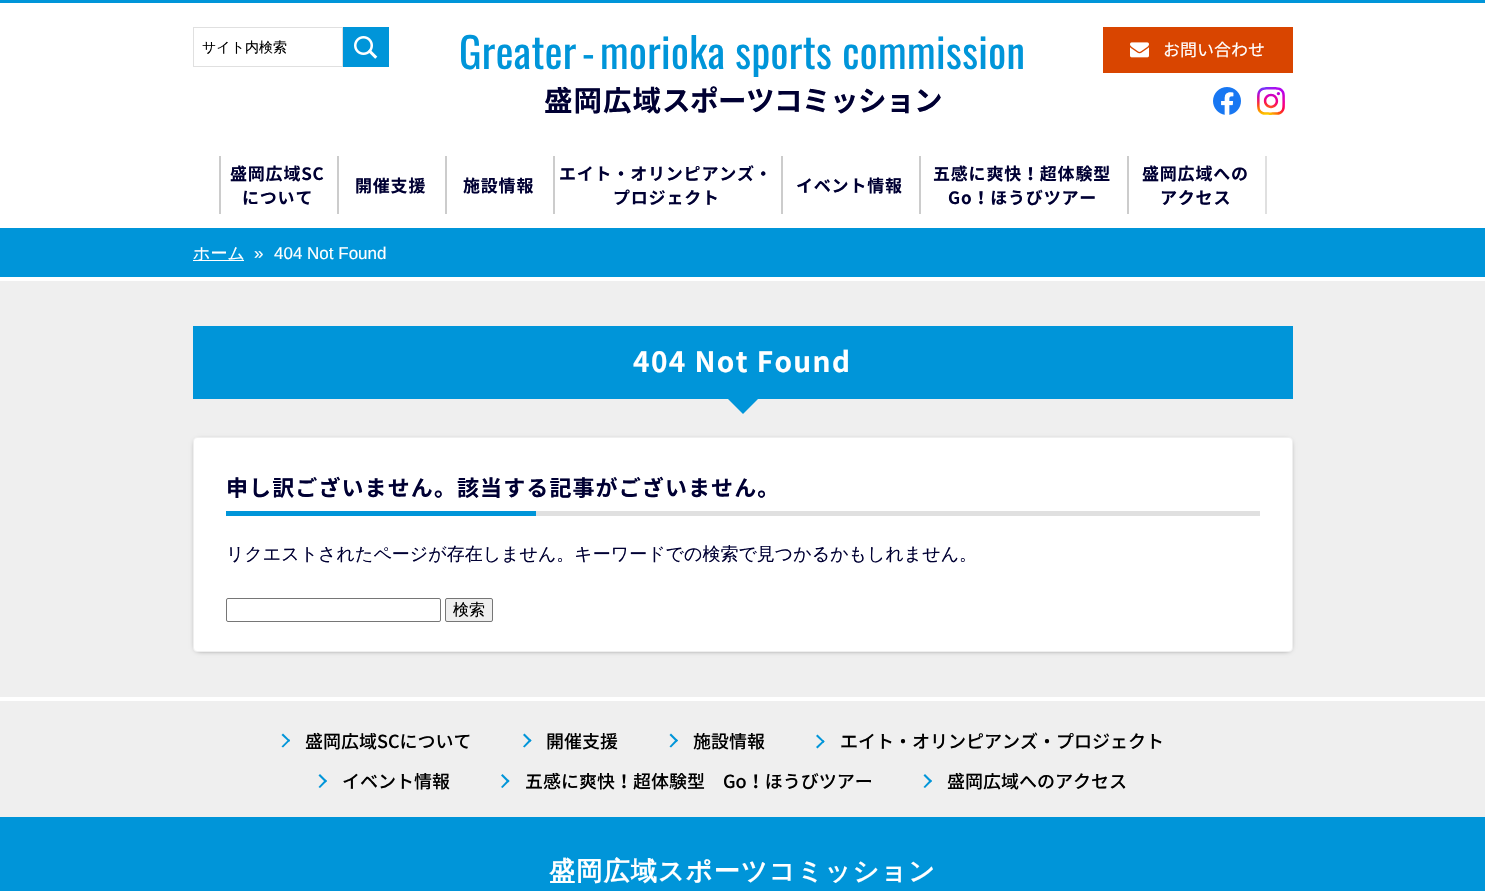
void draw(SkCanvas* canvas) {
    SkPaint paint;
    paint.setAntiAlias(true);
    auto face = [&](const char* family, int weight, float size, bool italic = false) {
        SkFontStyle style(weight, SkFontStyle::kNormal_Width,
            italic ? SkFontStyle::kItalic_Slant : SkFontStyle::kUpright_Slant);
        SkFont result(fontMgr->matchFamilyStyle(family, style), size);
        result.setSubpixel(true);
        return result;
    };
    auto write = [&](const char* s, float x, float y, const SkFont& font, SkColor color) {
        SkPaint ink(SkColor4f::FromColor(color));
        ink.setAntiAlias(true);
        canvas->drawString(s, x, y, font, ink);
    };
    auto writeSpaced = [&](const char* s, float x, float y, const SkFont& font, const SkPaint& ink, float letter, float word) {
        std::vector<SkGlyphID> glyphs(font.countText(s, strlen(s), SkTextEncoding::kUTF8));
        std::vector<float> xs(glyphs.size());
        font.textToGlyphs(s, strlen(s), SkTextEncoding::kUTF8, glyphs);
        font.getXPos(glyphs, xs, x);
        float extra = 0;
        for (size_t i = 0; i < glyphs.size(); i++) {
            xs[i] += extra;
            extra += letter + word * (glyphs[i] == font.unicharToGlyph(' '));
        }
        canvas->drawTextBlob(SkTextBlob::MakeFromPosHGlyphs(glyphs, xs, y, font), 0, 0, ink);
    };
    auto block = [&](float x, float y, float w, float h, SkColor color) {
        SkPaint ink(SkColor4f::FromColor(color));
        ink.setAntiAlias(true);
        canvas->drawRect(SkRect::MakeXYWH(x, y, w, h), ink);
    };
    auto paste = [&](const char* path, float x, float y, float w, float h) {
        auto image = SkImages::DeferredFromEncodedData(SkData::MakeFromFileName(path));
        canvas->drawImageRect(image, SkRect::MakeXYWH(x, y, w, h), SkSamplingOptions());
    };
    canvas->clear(SK_ColorWHITE);
    block(0, 0, 1485, 3, SkColorSetRGB(0, 149, 217));
    paint.setStyle(SkPaint::kStroke_Style);
    paint.setStrokeWidth(1);
    paint.setColor(SkColorSetRGB(224, 224, 224));
    canvas->drawRect(SkRect::MakeXYWH(193.5f, 27.5f, 149, 39), paint);
    auto kFont1 = face("WenQuanYi Zen Hei", 500, 14);
    write("サイト内検索", 202, 52, kFont1, SK_ColorBLACK);
    block(343, 27, 46, 40, SkColorSetRGB(0, 149, 217));
    paste("pic1.png", 354, 36, 24, 23);
    auto kFont2 = face("Oswald", 400, 42);
    paint.setStyle(SkPaint::kFill_Style);
    paint.setColor(SkColorSetRGB(0, 149, 217));
    writeSpaced("Greater", 459, 69, kFont2, paint, 0.4f, 0);
    writeSpaced("-", 582, 69, kFont2, paint, 0.4f, 0);
    writeSpaced("morioka sports commission", 600, 69, kFont2, paint, 0.4f, 0);
    auto kFont3 = face("Noto Sans JP", 700, 28.5f);
    paint.setColor(SkColorSetRGB(0, 0, 51));
    writeSpaced("盛岡広域", 544, 111, kFont3, paint, 1, 0);
    writeSpaced("スポーツコミッション", 662, 111, kFont3, paint, -0.5f, 0);
    block(1103, 27, 190, 46, SkColorSetRGB(217, 69, 0));
    paste("pic2.png", 1130, 42, 19, 16);
    auto kFont4 = face("Noto Sans JP", 400, 17);
    write("お問い合わせ", 1163, 56, kFont4, SK_ColorWHITE);
    paste("pic3.png", 1213, 87, 28, 28);
    paste("pic4.png", 1257, 87, 28, 28);
    block(219, 156, 2, 58, SkColorSetRGB(204, 204, 204));
    auto kFont5 = face("Noto Sans JP", 700, 17);
    writeSpaced("盛岡広域SC", 230, 180, kFont5, paint, 0.8f, 0);
    writeSpaced("について", 242, 204, kFont5, paint, 0.8f, 0);
    block(337, 156, 2, 58, SkColorSetRGB(204, 204, 204));
    writeSpaced("開催支援", 355, 192, kFont5, paint, 0.8f, 0);
    block(445, 156, 2, 58, SkColorSetRGB(204, 204, 204));
    writeSpaced("施設情報", 463, 192, kFont5, paint, 0.8f, 0);
    block(553, 156, 2, 58, SkColorSetRGB(204, 204, 204));
    writeSpaced("エイト・オリンピアンズ・", 559, 180, kFont5, paint, 0.8f, 0);
    writeSpaced("プロジェクト", 613, 204, kFont5, paint, 0.8f, 0);
    block(781, 156, 2, 58, SkColorSetRGB(204, 204, 204));
    writeSpaced("イベント情報", 796, 192, kFont5, paint, 0.8f, 0);
    block(919, 156, 2, 58, SkColorSetRGB(204, 204, 204));
    writeSpaced("五感に爽快！超体験型", 933, 180, kFont5, paint, 0.8f, 0);
    writeSpaced("Go！ほうびツアー", 948, 204, kFont5, paint, 0.8f, 0);
    block(1265, 156, 2, 58, SkColorSetRGB(224, 224, 224));
    block(1127, 156, 2, 58, SkColorSetRGB(204, 204, 204));
    writeSpaced("盛岡広域への", 1142, 180, kFont5, paint, 0.8f, 0);
    writeSpaced("アクセス", 1160, 204, kFont5, paint, 0.8f, 0);
    block(0, 228, 1485, 49, SkColorSetRGB(0, 149, 217));
    block(193, 260, 51, 1, SK_ColorWHITE);
    auto kFont6 = face("WenQuanYi Zen Hei", 500, 17);
    write("ホーム", 193, 259, kFont6, SK_ColorWHITE);
    auto kFont7 = face("Liberation Sans", 400, 17);
    write("»", 254, 259, kFont7, SK_ColorWHITE);
    write("404 Not Found", 274, 259, kFont7, SK_ColorWHITE);
    block(0, 281, 1485, 416, SkColorSetRGB(239, 239, 239));
    block(193, 326, 1100, 73, SkColorSetRGB(0, 149, 217));
    auto kFont8 = face("Noto Sans JP", 700, 28);
    paint.setColor(SK_ColorWHITE);
    writeSpaced("404 Not Found", 633, 372, kFont8, paint, 1.4f, 0);
    paint.setColor(SkColorSetRGB(0, 149, 217));
    canvas->drawPath(SkPathBuilder().moveTo(728, 399).lineTo(758, 399).lineTo(743, 414).close().detach(), paint);
    paint.setColor(SK_ColorBLACK);
    paint.setMaskFilter(SkMaskFilter::MakeBlur(kNormal_SkBlurStyle, 3));
    canvas->drawRect(SkRect::MakeXYWH(197, 442, 1092, 207), paint);
    paint.setMaskFilter(nullptr);
    paint.setColor(SK_ColorWHITE);
    canvas->drawRoundRect(SkRect::MakeXYWH(193.5f, 437.5f, 1099, 214), 3.5f, 3.5f, paint);
    paint.setStyle(SkPaint::kStroke_Style);
    paint.setColor(SkColorSetRGB(239, 239, 239));
    canvas->drawRoundRect(SkRect::MakeXYWH(193.5f, 437.5f, 1099, 214), 3.5f, 3.5f, paint);
    block(536, 511, 724, 5, SkColorSetRGB(224, 224, 224));
    auto kFont9 = face("Noto Sans JP", 700, 22);
    paint.setStyle(SkPaint::kFill_Style);
    paint.setColor(SkColorSetRGB(0, 0, 51));
    writeSpaced("申し訳ございません。該当する記事がございません。", 226, 496, kFont9, paint, 1.1f, 0);
    block(226, 511, 310, 5, SkColorSetRGB(0, 149, 217));
    auto kFont10 = face("WenQuanYi Zen Hei", 500, 18);
    write("リクエストされたページが存在しません。キーワードでの検索で見つかるかもしれません。", 226, 560, kFont10, SkColorSetRGB(0, 0, 51));
    paint.setStyle(SkPaint::kStroke_Style);
    paint.setColor(SkColorSetRGB(118, 118, 118));
    canvas->drawRoundRect(SkRect::MakeXYWH(226.5f, 598.5f, 214, 23), 1.5f, 1.5f, paint);
    paint.setStyle(SkPaint::kFill_Style);
    paint.setColor(SkColorSetRGB(239, 239, 239));
    canvas->drawRoundRect(SkRect::MakeXYWH(445.5f, 598.5f, 47, 23), 1.5f, 1.5f, paint);
    paint.setStyle(SkPaint::kStroke_Style);
    paint.setColor(SkColorSetRGB(118, 118, 118));
    canvas->drawRoundRect(SkRect::MakeXYWH(445.5f, 598.5f, 47, 23), 1.5f, 1.5f, paint);
    auto kFont11 = face("WenQuanYi Zen Hei", 500, 16);
    write("検索", 453, 615, kFont11, SK_ColorBLACK);
    block(0, 701, 1485, 116, SkColorSetRGB(239, 239, 239));
    paint.setStyle(SkPaint::kFill_Style);
    paint.setColor(SkColorSetRGB(0, 149, 217));
    canvas->drawPath(SkPathBuilder().moveTo(283, 733.5f).lineTo(290, 740.5f).lineTo(289, 742).lineTo(281.5f, 735).close().detach(), paint);
    canvas->drawPath(SkPathBuilder().moveTo(289, 739).lineTo(290, 740.5f).lineTo(283, 747.5f).lineTo(281.5f, 746.5f).close().detach(), paint);
    auto kFont12 = face("Noto Sans JP", 500, 18);
    write("盛岡広域SCについて", 305, 748, kFont12, SK_ColorBLACK);
    canvas->drawPath(SkPathBuilder().moveTo(524.5f, 733.5f).lineTo(531.5f, 740.5f).lineTo(530, 742).lineTo(523, 735).close().detach(), paint);
    canvas->drawPath(SkPathBuilder().moveTo(530, 739).lineTo(531.5f, 740.5f).lineTo(524.5f, 747.5f).lineTo(523, 746.5f).close().detach(), paint);
    write("開催支援", 546, 748, kFont12, SK_ColorBLACK);
    canvas->drawPath(SkPathBuilder().moveTo(671, 733.5f).lineTo(678, 740.5f).lineTo(676.5f, 742).lineTo(669.5f, 735).close().detach(), paint);
    canvas->drawPath(SkPathBuilder().moveTo(676.5f, 739).lineTo(678, 740.5f).lineTo(671, 747.5f).lineTo(669.5f, 746.5f).close().detach(), paint);
    write("施設情報", 693, 748, kFont12, SK_ColorBLACK);
    canvas->drawPath(SkPathBuilder().moveTo(817.5f, 734.5f).lineTo(824.5f, 741.5f).lineTo(823.5f, 743).lineTo(816, 736).close().detach(), paint);
    canvas->drawPath(SkPathBuilder().moveTo(823.5f, 740).lineTo(824.5f, 741.5f).lineTo(817.5f, 748.5f).lineTo(816, 747).close().detach(), paint);
    write("エイト・オリンピアンズ・プロジェクト", 840, 748, kFont12, SK_ColorBLACK);
    canvas->drawPath(SkPathBuilder().moveTo(320, 774).lineTo(327, 781).lineTo(325.5f, 782.5f).lineTo(318.5f, 775.5f).close().detach(), paint);
    canvas->drawPath(SkPathBuilder().moveTo(325.5f, 779.5f).lineTo(327, 781).lineTo(320, 788).lineTo(318.5f, 787).close().detach(), paint);
    write("イベント情報", 342, 788, kFont12, SK_ColorBLACK);
    canvas->drawPath(SkPathBuilder().moveTo(502.5f, 774).lineTo(509.5f, 781).lineTo(508, 782.5f).lineTo(501, 775.5f).close().detach(), paint);
    canvas->drawPath(SkPathBuilder().moveTo(508, 779.5f).lineTo(509.5f, 781).lineTo(502.5f, 788).lineTo(501, 787).close().detach(), paint);
    write("五感に爽快！超体験型　Go！ほうびツアー", 525, 788, kFont12, SK_ColorBLACK);
    canvas->drawPath(SkPathBuilder().moveTo(925, 774).lineTo(932, 781).lineTo(930.5f, 782.5f).lineTo(923.5f, 775.5f).close().detach(), paint);
    canvas->drawPath(SkPathBuilder().moveTo(930.5f, 779.5f).lineTo(932, 781).lineTo(925, 788).lineTo(923.5f, 787).close().detach(), paint);
    write("盛岡広域へのアクセス", 947, 788, kFont12, SK_ColorBLACK);
    block(0, 817, 1485, 74, SkColorSetRGB(0, 149, 217));
    auto kFont13 = face("WenQuanYi Zen Hei", 700, 26);
    paint.setColor(SK_ColorWHITE);
    writeSpaced("盛岡広域スポーツコミッション", 549, 880, kFont13, paint, 1.25f, 0);
}
